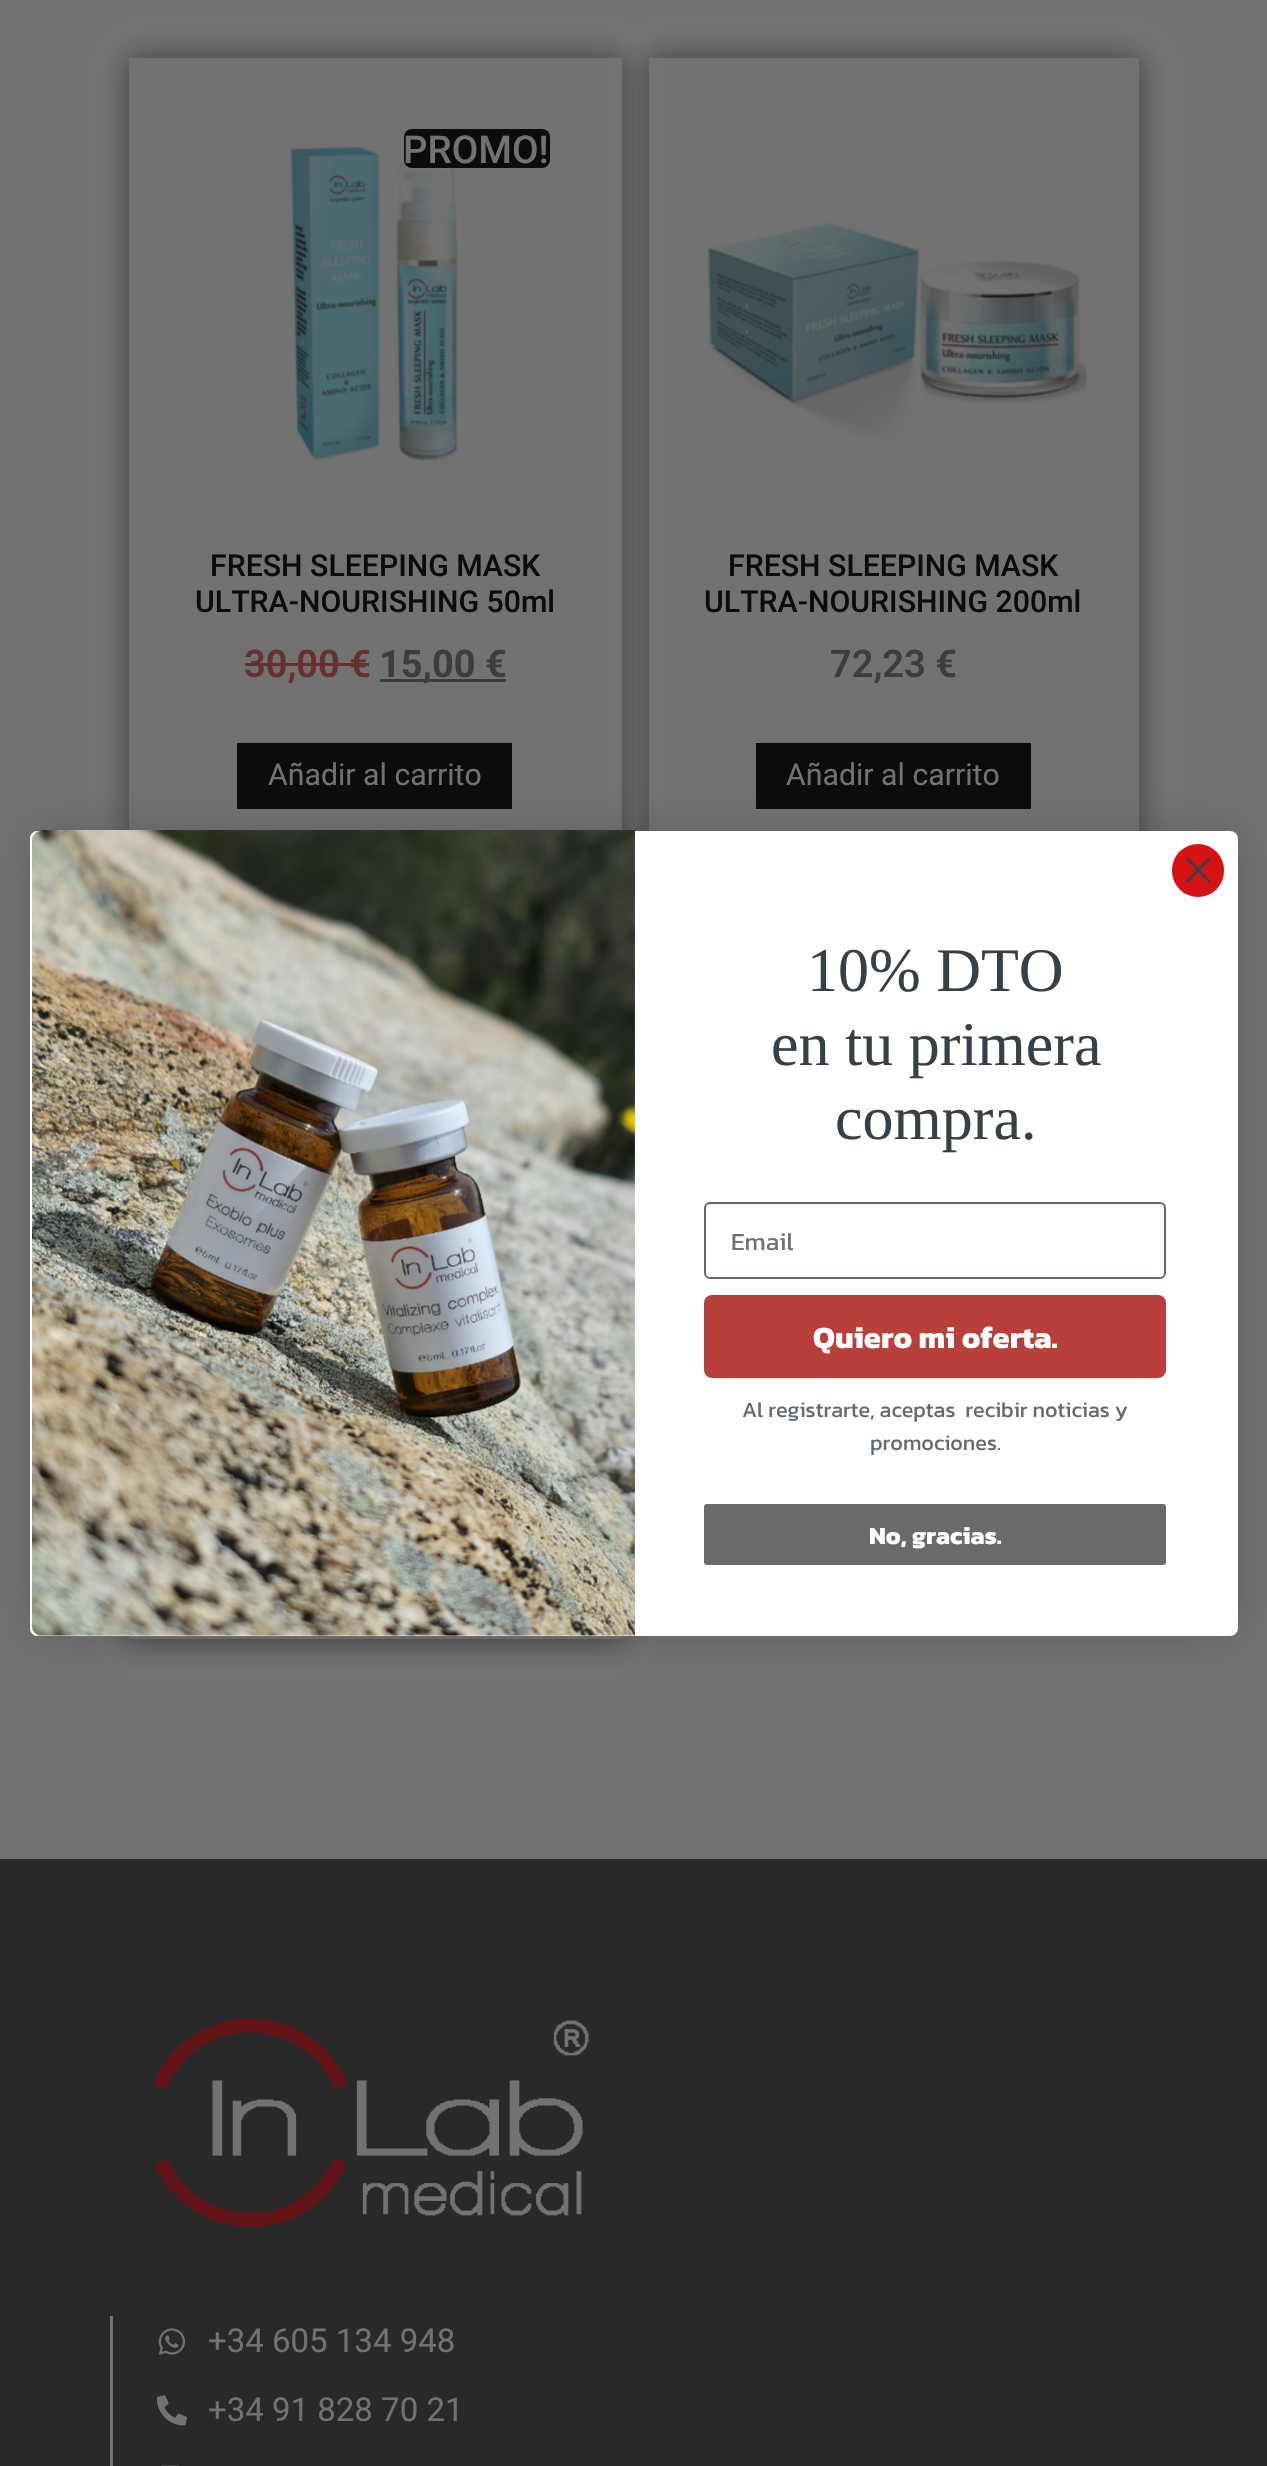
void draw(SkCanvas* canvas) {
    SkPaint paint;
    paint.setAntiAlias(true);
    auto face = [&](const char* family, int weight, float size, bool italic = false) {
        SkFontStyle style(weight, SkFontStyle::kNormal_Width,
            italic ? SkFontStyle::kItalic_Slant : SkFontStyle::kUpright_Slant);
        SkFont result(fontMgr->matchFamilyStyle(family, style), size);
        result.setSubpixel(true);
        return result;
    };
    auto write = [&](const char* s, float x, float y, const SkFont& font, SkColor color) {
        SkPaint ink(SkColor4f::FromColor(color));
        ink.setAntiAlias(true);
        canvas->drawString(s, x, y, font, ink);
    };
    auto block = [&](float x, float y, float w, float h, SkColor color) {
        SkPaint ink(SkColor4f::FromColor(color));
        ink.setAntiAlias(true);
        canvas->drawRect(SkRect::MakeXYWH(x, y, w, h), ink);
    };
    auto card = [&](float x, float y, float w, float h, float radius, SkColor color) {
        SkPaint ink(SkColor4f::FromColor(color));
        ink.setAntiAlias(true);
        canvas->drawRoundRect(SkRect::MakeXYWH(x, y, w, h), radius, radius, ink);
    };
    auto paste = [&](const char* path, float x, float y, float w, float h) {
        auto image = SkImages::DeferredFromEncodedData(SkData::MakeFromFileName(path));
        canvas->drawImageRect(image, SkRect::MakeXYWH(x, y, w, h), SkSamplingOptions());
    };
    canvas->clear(SkColorSetRGB(114, 114, 114));
    canvas->save();
    canvas->clipPath(SkPathBuilder(SkPathFillType::kEvenOdd).moveTo(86, 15).lineTo(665, 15).lineTo(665, 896).lineTo(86, 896).close().moveTo(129, 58).lineTo(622, 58).lineTo(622, 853).lineTo(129, 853).close().detach(), true);
    paint.setColor(SkColorSetARGB(128, 12, 12, 12));
    paint.setMaskFilter(SkMaskFilter::MakeBlur(kNormal_SkBlurStyle, 14));
    canvas->drawRect(SkRect::MakeXYWH(129, 58, 493, 795), paint);
    paint.setMaskFilter(nullptr);
    canvas->restore();
    paste("pic1.png", 290, 146, 169, 316);
    card(404, 129, 146, 39, 8, SkColorSetRGB(12, 12, 12));
    auto kFont1 = face("Roboto", 500, 38.5f);
    write("PROMO!", 403, 163, kFont1, SkColorSetRGB(114, 114, 114));
    auto kFont2 = face("Roboto", 500, 30.25f);
    write("FRESH SLEEPING MASK", 210, 576, kFont2, SkColorSetRGB(12, 12, 12));
    write("ULTRA-NOURISHING 50ml", 195, 612, kFont2, SkColorSetRGB(12, 12, 12));
    auto kFont3 = face("Roboto", 600, 38);
    write("30,00 €", 244, 677, kFont3, SkColorSetRGB(102, 48, 48));
    block(245, 663, 124, 3, SkColorSetRGB(102, 48, 48));
    block(380, 679, 126, 3, SkColorSetRGB(61, 61, 61));
    auto kFont4 = face("Roboto", 700, 38);
    write("15,00 €", 379, 677, kFont4, SkColorSetRGB(61, 61, 61));
    block(237, 743, 275, 66, SkColorSetRGB(12, 12, 12));
    auto kFont5 = face("Roboto", 400, 30.25f);
    write("Añadir al carrito", 268, 785, kFont5, SkColorSetRGB(114, 114, 114));
    canvas->save();
    canvas->clipPath(SkPathBuilder(SkPathFillType::kEvenOdd).moveTo(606, 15).lineTo(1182, 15).lineTo(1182, 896).lineTo(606, 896).close().moveTo(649, 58).lineTo(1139, 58).lineTo(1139, 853).lineTo(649, 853).close().detach(), true);
    paint.setMaskFilter(SkMaskFilter::MakeBlur(kNormal_SkBlurStyle, 14));
    canvas->drawRect(SkRect::MakeXYWH(649, 58, 490, 795), paint);
    paint.setMaskFilter(nullptr);
    canvas->restore();
    paste("pic2.png", 707, 222, 380, 219);
    write("FRESH SLEEPING MASK", 728, 576, kFont2, SkColorSetRGB(12, 12, 12));
    write("ULTRA-NOURISHING 200ml", 704, 612, kFont2, SkColorSetRGB(12, 12, 12));
    write("72,23 €", 830, 677, kFont3, SkColorSetRGB(61, 61, 61));
    block(756, 743, 275, 66, SkColorSetRGB(12, 12, 12));
    write("Añadir al carrito", 786, 785, kFont5, SkColorSetRGB(114, 114, 114));
    canvas->save();
    canvas->clipPath(SkPathBuilder(SkPathFillType::kEvenOdd).moveTo(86, 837).lineTo(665, 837).lineTo(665, 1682).lineTo(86, 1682).close().moveTo(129, 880).lineTo(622, 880).lineTo(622, 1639).lineTo(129, 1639).close().detach(), true);
    paint.setMaskFilter(SkMaskFilter::MakeBlur(kNormal_SkBlurStyle, 14));
    canvas->drawRect(SkRect::MakeXYWH(129, 880, 493, 759), paint);
    paint.setMaskFilter(nullptr);
    canvas->restore();
    paint.setColor(SkColorSetARGB(38, 0, 0, 0));
    paint.setMaskFilter(SkMaskFilter::MakeBlur(kNormal_SkBlurStyle, 23));
    canvas->drawRoundRect(SkRect::MakeXYWH(30, 831, 1208, 805), 8, 8, paint);
    paint.setMaskFilter(nullptr);
    card(30, 831, 1208, 805, 8, SK_ColorWHITE);
    card(1172, 844, 52, 53, 26, SkColorSetRGB(214, 18, 21));
    paint.setStyle(SkPaint::kStroke_Style);
    paint.setStrokeWidth(2.7f);
    paint.setStrokeCap(SkPaint::kRound_Cap);
    paint.setStrokeJoin(SkPaint::kRound_Join);
    paint.setColor(SkColorSetRGB(55, 63, 71));
    canvas->drawPath(SkPathBuilder().moveTo(1187.5f, 859).lineTo(1209, 881).moveTo(1187.5f, 881).lineTo(1209, 859).close().detach(), paint);
    paint.setStyle(SkPaint::kFill_Style);
    paint.setColor(SK_ColorWHITE);
    canvas->drawPath(SkPathBuilder().moveTo(38, 831).lineTo(635, 831).lineTo(635, 1636).lineTo(38, 1636).cubicTo(33.5f, 1636, 30, 1632.5f, 30, 1628).lineTo(30, 839).cubicTo(30, 834.5f, 33.5f, 831, 38, 831).close().detach(), paint);
    paste("pic3.png", 32, 830, 603, 806);
    auto kFont6 = face("Liberation Serif", 400, 62);
    write("10% DTO", 807, 991, kFont6, SkColorSetRGB(55, 63, 71));
    write("en tu primera", 771, 1065, kFont6, SkColorSetRGB(55, 63, 71));
    write("compra.", 835, 1139, kFont6, SkColorSetRGB(55, 63, 71));
    paint.setStyle(SkPaint::kStroke_Style);
    paint.setStrokeWidth(2);
    paint.setStrokeCap(SkPaint::kButt_Cap);
    paint.setStrokeJoin(SkPaint::kMiter_Join);
    paint.setColor(SkColorSetRGB(96, 106, 114));
    canvas->drawRoundRect(SkRect::MakeXYWH(705, 1203, 460, 75), 5, 5, paint);
    auto kFont7 = face("Kanit", 400, 24.75f);
    write("Email", 731, 1250, kFont7, SkColorSetRGB(114, 114, 114));
    card(704, 1295, 462, 83, 8, SkColorSetRGB(185, 64, 58));
    auto kFont8 = face("Kanit", 700, 31);
    write("Quiero mi oferta.", 813, 1348, kFont8, SK_ColorWHITE);
    auto kFont9 = face("Kanit", 400, 21.6f);
    write("Al registrarte, aceptas  recibir noticias y", 742, 1417, kFont9, SkColorSetRGB(96, 106, 114));
    write("promociones.", 870, 1450, kFont9, SkColorSetRGB(96, 106, 114));
    card(704, 1504, 462, 61, 3, SkColorSetRGB(107, 106, 106));
    auto kFont10 = face("Kanit", 700, 24.75f);
    write("No, gracias.", 869, 1544, kFont10, SK_ColorWHITE);
    block(0, 1859, 1267, 607, SkColorSetRGB(41, 41, 41));
    paste("pic4.png", 154, 2018, 435, 210);
    block(110, 2316, 3, 150, SkColorSetRGB(114, 114, 114));
    paste("pic5.png", 158, 2328, 28, 27);
    auto kFont11 = face("Roboto", 400, 33);
    write("+34 605 134 948", 208, 2352, kFont11, SkColorSetRGB(114, 114, 114));
    paste("pic6.png", 157, 2395, 30, 31);
    write("+34 91 828 70 21", 208, 2421, kFont11, SkColorSetRGB(114, 114, 114));
    paste("pic7.png", 161, 2465, 19, 1);
}
